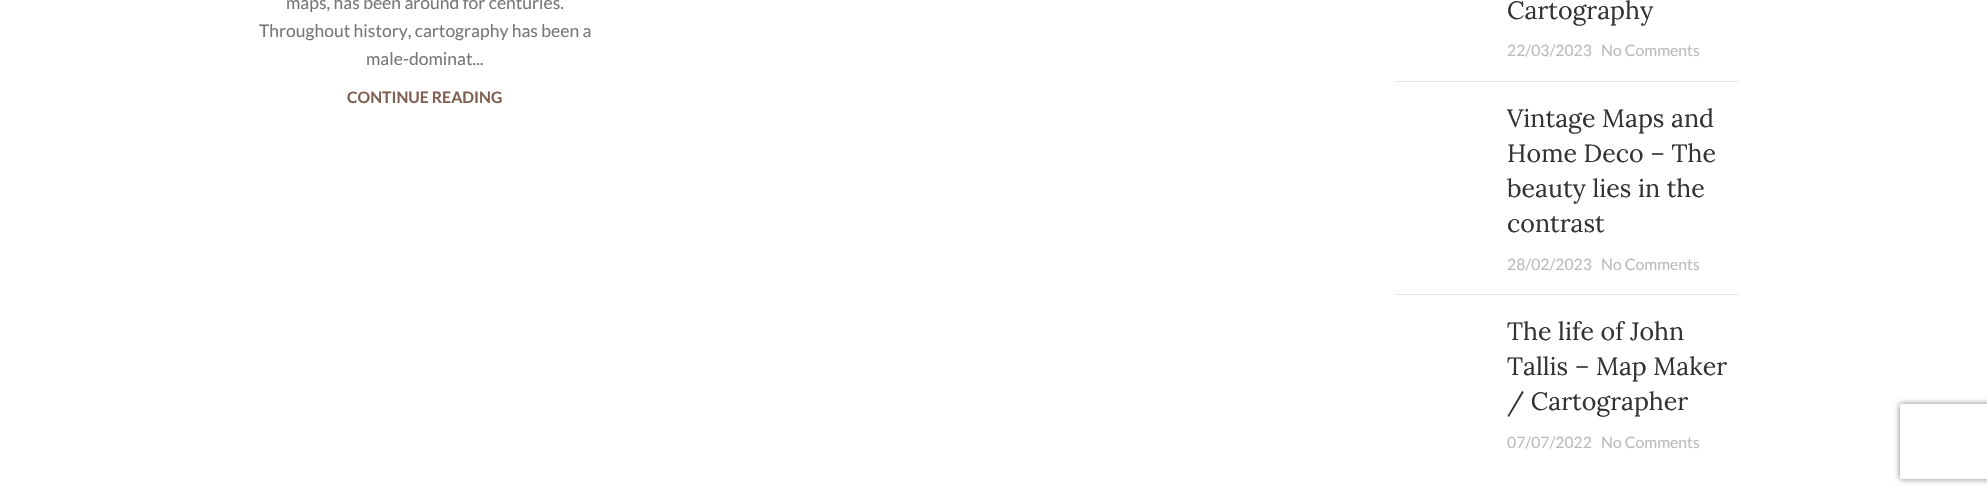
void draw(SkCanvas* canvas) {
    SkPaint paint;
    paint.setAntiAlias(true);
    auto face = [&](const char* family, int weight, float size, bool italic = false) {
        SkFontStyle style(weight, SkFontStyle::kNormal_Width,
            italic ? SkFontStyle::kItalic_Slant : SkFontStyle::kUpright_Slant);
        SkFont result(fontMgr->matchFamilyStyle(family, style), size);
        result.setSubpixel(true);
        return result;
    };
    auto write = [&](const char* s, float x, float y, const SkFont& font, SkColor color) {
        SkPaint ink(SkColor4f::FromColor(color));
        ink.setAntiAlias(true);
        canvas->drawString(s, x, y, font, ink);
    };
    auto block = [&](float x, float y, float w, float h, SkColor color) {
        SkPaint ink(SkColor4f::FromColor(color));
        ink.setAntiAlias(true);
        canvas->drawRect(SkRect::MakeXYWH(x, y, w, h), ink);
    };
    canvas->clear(SK_ColorWHITE);
    auto kFont1 = face("Lato", 400, 17.5f);
    write("maps, has been around for centuries.", 286, 9, kFont1, SkColorSetRGB(119, 119, 119));
    write("Throughout history, cartography has been a", 259, 37, kFont1, SkColorSetRGB(119, 119, 119));
    write("male-dominat...", 366, 65, kFont1, SkColorSetRGB(119, 119, 119));
    auto kFont2 = face("Lato", 700, 15.75f);
    write("CONTINUE READING", 347, 103, kFont2, SkColorSetRGB(127, 96, 81));
    block(1395, 81, 344, 1, SkColorSetRGB(228, 228, 228));
    auto kFont3 = face("Lora", 400, 25);
    write("Cartography", 1507, 19, kFont3, SkColorSetRGB(51, 51, 51));
    auto kFont4 = face("Lato", 400, 15.75f);
    write("22/03/2023", 1507, 56, kFont4, SkColorSetRGB(187, 187, 187));
    write("No Comments", 1601, 56, kFont4, SkColorSetRGB(187, 187, 187));
    block(1395, 294, 344, 1, SkColorSetRGB(228, 228, 228));
    write("Vintage Maps and", 1507, 127, kFont3, SkColorSetRGB(51, 51, 51));
    write("Home Deco – The", 1507, 162, kFont3, SkColorSetRGB(51, 51, 51));
    write("beauty lies in the", 1507, 197, kFont3, SkColorSetRGB(51, 51, 51));
    write("contrast", 1507, 232, kFont3, SkColorSetRGB(51, 51, 51));
    write("28/02/2023", 1507, 270, kFont4, SkColorSetRGB(187, 187, 187));
    write("No Comments", 1601, 270, kFont4, SkColorSetRGB(187, 187, 187));
    write("The life of John", 1507, 340, kFont3, SkColorSetRGB(51, 51, 51));
    write("Tallis – Map Maker", 1507, 375, kFont3, SkColorSetRGB(51, 51, 51));
    write("/ Cartographer", 1507, 410, kFont3, SkColorSetRGB(51, 51, 51));
    write("07/07/2022", 1507, 448, kFont4, SkColorSetRGB(187, 187, 187));
    write("No Comments", 1601, 448, kFont4, SkColorSetRGB(187, 187, 187));
    canvas->save();
    canvas->clipPath(SkPathBuilder(SkPathFillType::kEvenOdd).moveTo(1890, 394).lineTo(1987, 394).lineTo(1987, 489).lineTo(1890, 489).close().moveTo(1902.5f, 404).lineTo(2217.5f, 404).cubicTo(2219, 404, 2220, 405, 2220, 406.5f).lineTo(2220, 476.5f).cubicTo(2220, 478, 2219, 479, 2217.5f, 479).lineTo(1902.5f, 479).cubicTo(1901, 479, 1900, 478, 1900, 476.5f).lineTo(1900, 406.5f).cubicTo(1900, 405, 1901, 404, 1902.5f, 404).close().detach(), true);
    paint.setColor(SkColorSetRGB(128, 128, 128));
    paint.setMaskFilter(SkMaskFilter::MakeBlur(kNormal_SkBlurStyle, 3));
    canvas->drawRoundRect(SkRect::MakeXYWH(1900, 404, 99, 75), 2.5f, 2.5f, paint);
    paint.setMaskFilter(nullptr);
    canvas->restore();
}
